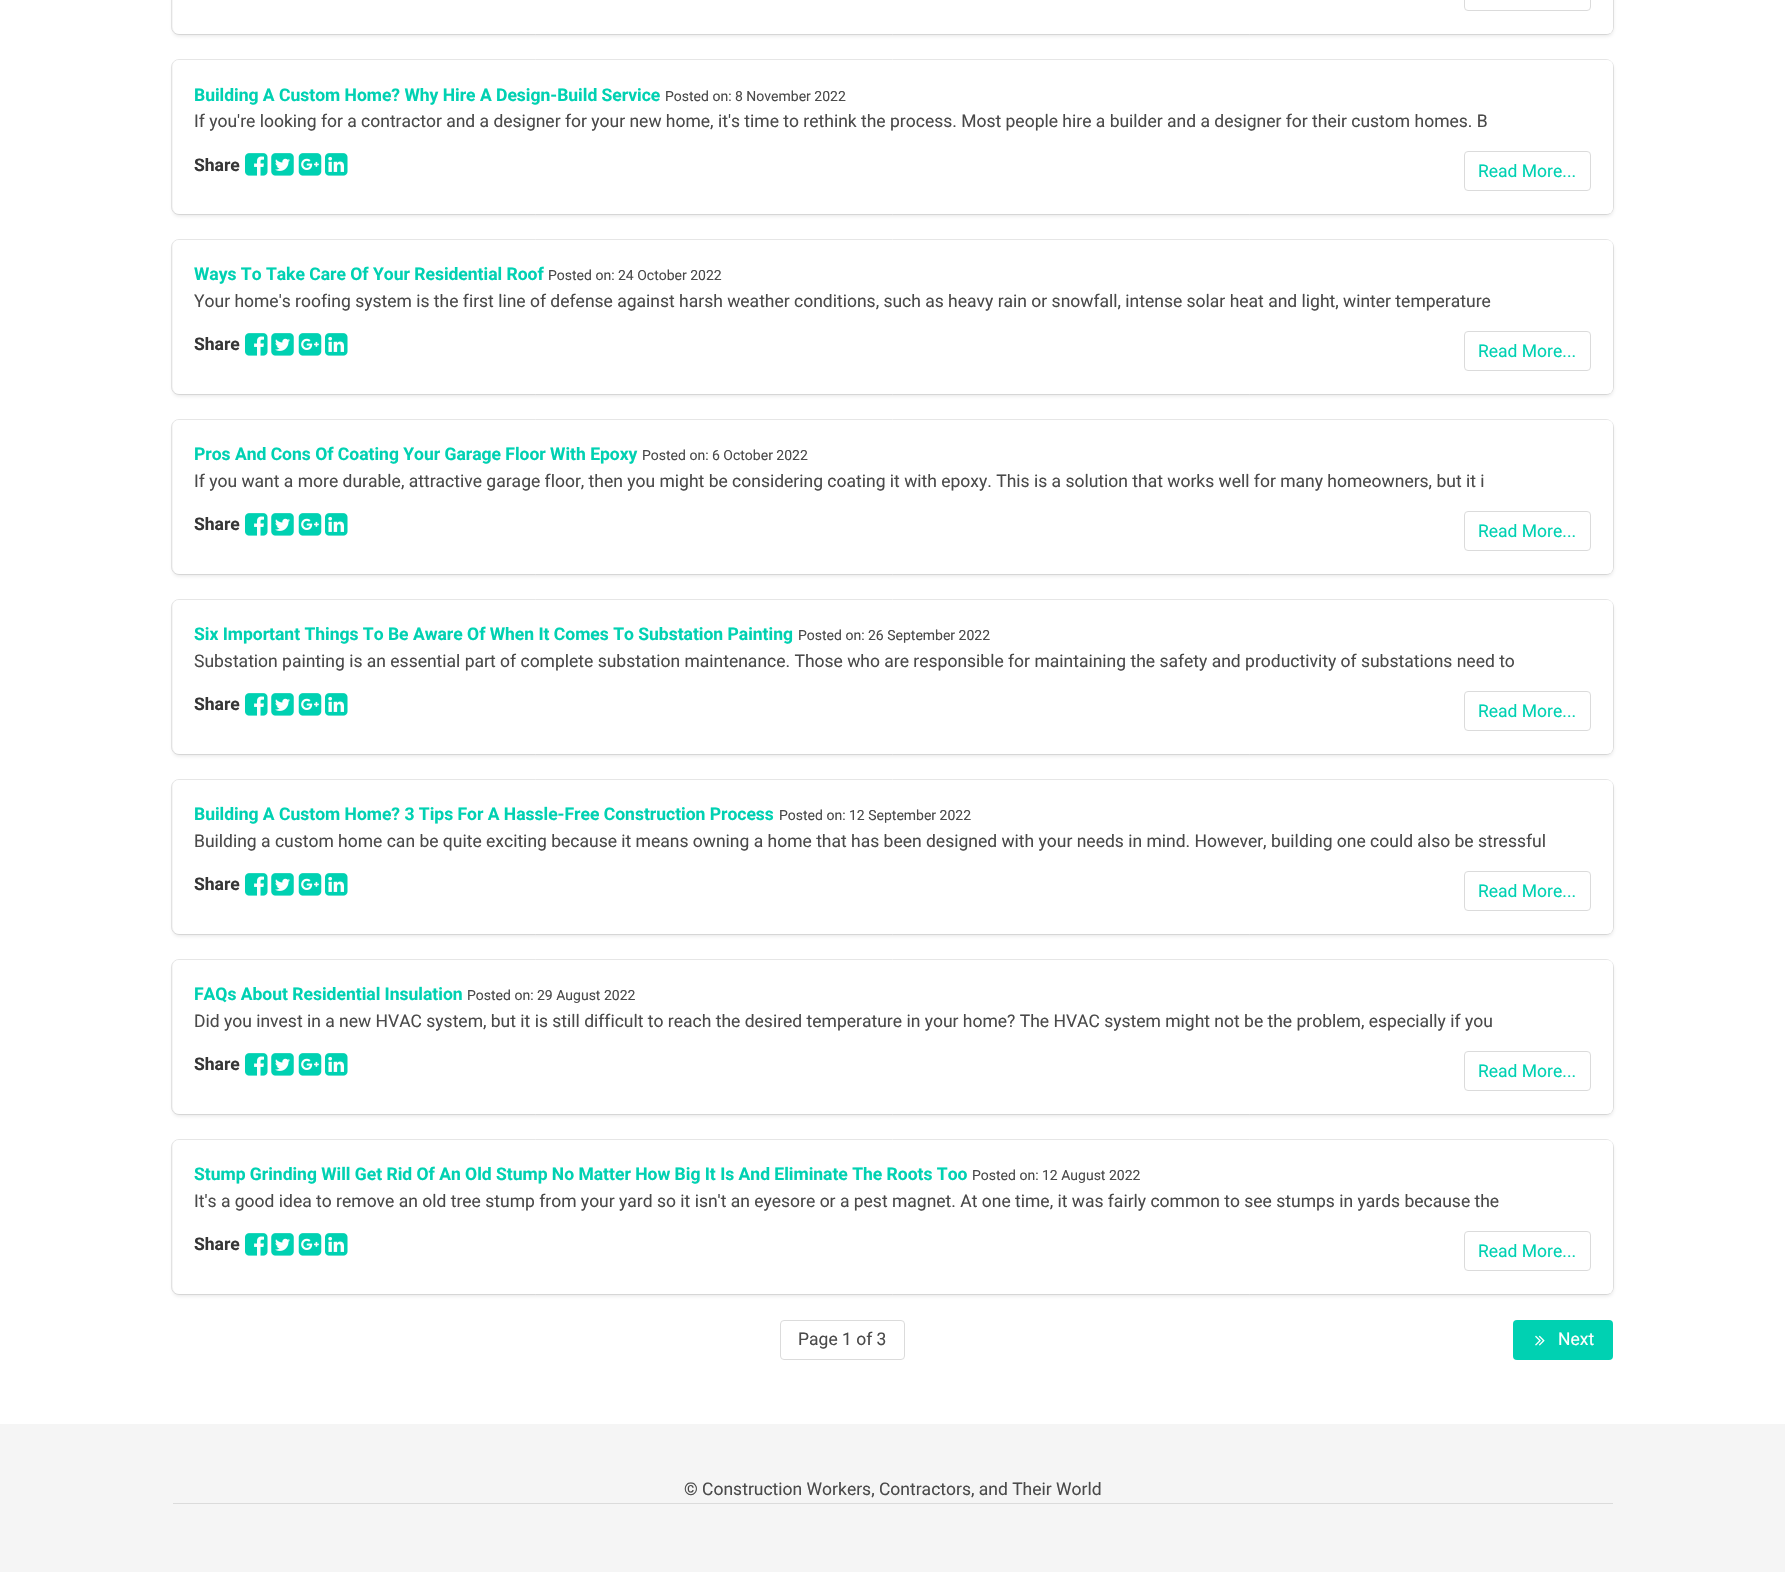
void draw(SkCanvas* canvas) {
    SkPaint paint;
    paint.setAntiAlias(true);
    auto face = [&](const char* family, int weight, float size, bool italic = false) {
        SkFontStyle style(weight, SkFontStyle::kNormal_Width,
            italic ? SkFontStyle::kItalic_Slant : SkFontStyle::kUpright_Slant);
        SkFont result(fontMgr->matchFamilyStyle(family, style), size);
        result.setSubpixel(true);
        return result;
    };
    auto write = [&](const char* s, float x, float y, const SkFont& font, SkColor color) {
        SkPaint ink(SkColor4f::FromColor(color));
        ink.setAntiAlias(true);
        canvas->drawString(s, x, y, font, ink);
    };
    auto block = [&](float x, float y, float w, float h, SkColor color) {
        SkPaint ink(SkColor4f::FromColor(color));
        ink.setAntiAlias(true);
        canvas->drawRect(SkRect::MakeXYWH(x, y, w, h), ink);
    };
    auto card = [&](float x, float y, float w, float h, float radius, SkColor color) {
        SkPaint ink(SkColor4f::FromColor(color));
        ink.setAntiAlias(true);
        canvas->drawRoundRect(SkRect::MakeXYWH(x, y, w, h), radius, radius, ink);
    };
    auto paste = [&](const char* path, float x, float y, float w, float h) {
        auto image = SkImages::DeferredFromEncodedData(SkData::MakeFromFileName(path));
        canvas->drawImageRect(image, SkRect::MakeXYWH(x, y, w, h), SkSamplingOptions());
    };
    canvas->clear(SK_ColorWHITE);
    paint.setStyle(SkPaint::kStroke_Style);
    paint.setStrokeWidth(1);
    paint.setColor(SkColorSetRGB(231, 231, 231));
    canvas->drawRoundRect(SkRect::MakeXYWH(171.5f, -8.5f, 1442, 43), 7.5f, 7.5f, paint);
    paint.setStyle(SkPaint::kFill_Style);
    paint.setColor(SkColorSetARGB(26, 10, 10, 10));
    paint.setMaskFilter(SkMaskFilter::MakeBlur(kNormal_SkBlurStyle, 2));
    canvas->drawRoundRect(SkRect::MakeXYWH(173, -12, 1440, 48), 6, 6, paint);
    paint.setMaskFilter(nullptr);
    card(173, -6, 1440, 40, 6, SK_ColorWHITE);
    paint.setStyle(SkPaint::kStroke_Style);
    paint.setColor(SkColorSetRGB(219, 219, 219));
    canvas->drawRoundRect(SkRect::MakeXYWH(1464.5f, -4.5f, 126, 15), 3.5f, 3.5f, paint);
    paint.setColor(SkColorSetRGB(231, 231, 231));
    canvas->drawRoundRect(SkRect::MakeXYWH(171.5f, 59.5f, 1442, 155), 7.5f, 7.5f, paint);
    paint.setStyle(SkPaint::kFill_Style);
    paint.setColor(SkColorSetARGB(26, 10, 10, 10));
    paint.setMaskFilter(SkMaskFilter::MakeBlur(kNormal_SkBlurStyle, 2));
    canvas->drawRoundRect(SkRect::MakeXYWH(173, 63, 1440, 153), 6, 6, paint);
    paint.setMaskFilter(nullptr);
    card(173, 60, 1440, 154, 6, SK_ColorWHITE);
    auto kFont1 = face("Roboto", 700, 17.5f);
    write("Building A Custom Home? Why Hire A Design-Build Service", 194, 101, kFont1, SkColorSetRGB(0, 209, 178));
    auto kFont2 = face("Roboto", 400, 14);
    write("Posted on: 8 November 2022", 665, 101, kFont2, SkColorSetRGB(74, 74, 74));
    auto kFont3 = face("Roboto", 400, 17.5f);
    write("If you're looking for a contractor and a designer for your new home, it's time to rethink the process. Most people hire a builder and a designer for their custom homes. B", 194, 127, kFont3, SkColorSetRGB(74, 74, 74));
    paint.setStyle(SkPaint::kStroke_Style);
    paint.setColor(SkColorSetRGB(219, 219, 219));
    canvas->drawRoundRect(SkRect::MakeXYWH(1464.5f, 151.5f, 126, 39), 3.5f, 3.5f, paint);
    write("Read More...", 1478, 177, kFont3, SkColorSetRGB(0, 209, 178));
    write("Share", 194, 171, kFont1, SkColorSetRGB(54, 54, 54));
    paste("pic1.png", 245, 153, 23, 23);
    paste("pic2.png", 271, 153, 23, 23);
    paste("pic3.png", 298, 153, 24, 23);
    paste("pic4.png", 325, 153, 23, 23);
    paint.setColor(SkColorSetRGB(231, 231, 231));
    canvas->drawRoundRect(SkRect::MakeXYWH(171.5f, 239.5f, 1442, 155), 7.5f, 7.5f, paint);
    paint.setStyle(SkPaint::kFill_Style);
    paint.setColor(SkColorSetARGB(26, 10, 10, 10));
    paint.setMaskFilter(SkMaskFilter::MakeBlur(kNormal_SkBlurStyle, 2));
    canvas->drawRoundRect(SkRect::MakeXYWH(173, 243, 1440, 153), 6, 6, paint);
    paint.setMaskFilter(nullptr);
    card(173, 240, 1440, 154, 6, SK_ColorWHITE);
    write("Ways To Take Care Of Your Residential Roof", 194, 280, kFont1, SkColorSetRGB(0, 209, 178));
    write("Posted on: 24 October 2022", 548, 280, kFont2, SkColorSetRGB(74, 74, 74));
    write("Your home's roofing system is the first line of defense against harsh weather conditions, such as heavy rain or snowfall, intense solar heat and light, winter temperature", 194, 307, kFont3, SkColorSetRGB(74, 74, 74));
    paint.setStyle(SkPaint::kStroke_Style);
    paint.setColor(SkColorSetRGB(219, 219, 219));
    canvas->drawRoundRect(SkRect::MakeXYWH(1464.5f, 331.5f, 126, 39), 3.5f, 3.5f, paint);
    write("Read More...", 1478, 357, kFont3, SkColorSetRGB(0, 209, 178));
    write("Share", 194, 350, kFont1, SkColorSetRGB(54, 54, 54));
    paste("pic1.png", 245, 333, 23, 23);
    paste("pic2.png", 271, 333, 23, 23);
    paste("pic3.png", 298, 333, 24, 23);
    paste("pic4.png", 325, 333, 23, 23);
    paint.setColor(SkColorSetRGB(231, 231, 231));
    canvas->drawRoundRect(SkRect::MakeXYWH(171.5f, 419.5f, 1442, 155), 7.5f, 7.5f, paint);
    paint.setStyle(SkPaint::kFill_Style);
    paint.setColor(SkColorSetARGB(26, 10, 10, 10));
    paint.setMaskFilter(SkMaskFilter::MakeBlur(kNormal_SkBlurStyle, 2));
    canvas->drawRoundRect(SkRect::MakeXYWH(173, 423, 1440, 153), 6, 6, paint);
    paint.setMaskFilter(nullptr);
    card(173, 420, 1440, 154, 6, SK_ColorWHITE);
    write("Pros And Cons Of Coating Your Garage Floor With Epoxy", 194, 460, kFont1, SkColorSetRGB(0, 209, 178));
    write("Posted on: 6 October 2022", 642, 460, kFont2, SkColorSetRGB(74, 74, 74));
    write("If you want a more durable, attractive garage floor, then you might be considering coating it with epoxy. This is a solution that works well for many homeowners, but it i", 194, 487, kFont3, SkColorSetRGB(74, 74, 74));
    paint.setStyle(SkPaint::kStroke_Style);
    paint.setColor(SkColorSetRGB(219, 219, 219));
    canvas->drawRoundRect(SkRect::MakeXYWH(1464.5f, 511.5f, 126, 39), 3.5f, 3.5f, paint);
    write("Read More...", 1478, 537, kFont3, SkColorSetRGB(0, 209, 178));
    write("Share", 194, 530, kFont1, SkColorSetRGB(54, 54, 54));
    paste("pic1.png", 245, 513, 23, 23);
    paste("pic2.png", 271, 513, 23, 23);
    paste("pic3.png", 298, 513, 24, 23);
    paste("pic4.png", 325, 513, 23, 23);
    paint.setColor(SkColorSetRGB(231, 231, 231));
    canvas->drawRoundRect(SkRect::MakeXYWH(171.5f, 599.5f, 1442, 155), 7.5f, 7.5f, paint);
    paint.setStyle(SkPaint::kFill_Style);
    paint.setColor(SkColorSetARGB(26, 10, 10, 10));
    paint.setMaskFilter(SkMaskFilter::MakeBlur(kNormal_SkBlurStyle, 2));
    canvas->drawRoundRect(SkRect::MakeXYWH(173, 603, 1440, 153), 6, 6, paint);
    paint.setMaskFilter(nullptr);
    card(173, 600, 1440, 154, 6, SK_ColorWHITE);
    write("Six Important Things To Be Aware Of When It Comes To Substation Painting", 194, 640, kFont1, SkColorSetRGB(0, 209, 178));
    write("Posted on: 26 September 2022", 798, 640, kFont2, SkColorSetRGB(74, 74, 74));
    write("Substation painting is an essential part of complete substation maintenance. Those who are responsible for maintaining the safety and productivity of substations need to", 194, 667, kFont3, SkColorSetRGB(74, 74, 74));
    paint.setStyle(SkPaint::kStroke_Style);
    paint.setColor(SkColorSetRGB(219, 219, 219));
    canvas->drawRoundRect(SkRect::MakeXYWH(1464.5f, 691.5f, 126, 39), 3.5f, 3.5f, paint);
    write("Read More...", 1478, 717, kFont3, SkColorSetRGB(0, 209, 178));
    write("Share", 194, 710, kFont1, SkColorSetRGB(54, 54, 54));
    paste("pic1.png", 245, 693, 23, 23);
    paste("pic2.png", 271, 693, 23, 23);
    paste("pic3.png", 298, 693, 24, 23);
    paste("pic4.png", 325, 693, 23, 23);
    paint.setColor(SkColorSetRGB(231, 231, 231));
    canvas->drawRoundRect(SkRect::MakeXYWH(171.5f, 779.5f, 1442, 155), 7.5f, 7.5f, paint);
    paint.setStyle(SkPaint::kFill_Style);
    paint.setColor(SkColorSetARGB(26, 10, 10, 10));
    paint.setMaskFilter(SkMaskFilter::MakeBlur(kNormal_SkBlurStyle, 2));
    canvas->drawRoundRect(SkRect::MakeXYWH(173, 783, 1440, 153), 6, 6, paint);
    paint.setMaskFilter(nullptr);
    card(173, 780, 1440, 154, 6, SK_ColorWHITE);
    write("Building A Custom Home? 3 Tips For A Hassle-Free Construction Process", 194, 820, kFont1, SkColorSetRGB(0, 209, 178));
    write("Posted on: 12 September 2022", 779, 820, kFont2, SkColorSetRGB(74, 74, 74));
    write("Building a custom home can be quite exciting because it means owning a home that has been designed with your needs in mind. However, building one could also be stressful", 194, 847, kFont3, SkColorSetRGB(74, 74, 74));
    paint.setStyle(SkPaint::kStroke_Style);
    paint.setColor(SkColorSetRGB(219, 219, 219));
    canvas->drawRoundRect(SkRect::MakeXYWH(1464.5f, 871.5f, 126, 39), 3.5f, 3.5f, paint);
    write("Read More...", 1478, 897, kFont3, SkColorSetRGB(0, 209, 178));
    write("Share", 194, 890, kFont1, SkColorSetRGB(54, 54, 54));
    paste("pic1.png", 245, 873, 23, 23);
    paste("pic2.png", 271, 873, 23, 23);
    paste("pic3.png", 298, 873, 24, 23);
    paste("pic4.png", 325, 873, 23, 23);
    paint.setColor(SkColorSetRGB(231, 231, 231));
    canvas->drawRoundRect(SkRect::MakeXYWH(171.5f, 959.5f, 1442, 155), 7.5f, 7.5f, paint);
    paint.setStyle(SkPaint::kFill_Style);
    paint.setColor(SkColorSetARGB(26, 10, 10, 10));
    paint.setMaskFilter(SkMaskFilter::MakeBlur(kNormal_SkBlurStyle, 2));
    canvas->drawRoundRect(SkRect::MakeXYWH(173, 963, 1440, 153), 6, 6, paint);
    paint.setMaskFilter(nullptr);
    card(173, 960, 1440, 154, 6, SK_ColorWHITE);
    write("FAQs About Residential Insulation", 194, 1000, kFont1, SkColorSetRGB(0, 209, 178));
    write("Posted on: 29 August 2022", 467, 1000, kFont2, SkColorSetRGB(74, 74, 74));
    write("Did you invest in a new HVAC system, but it is still difficult to reach the desired temperature in your home? The HVAC system might not be the problem, especially if you", 194, 1027, kFont3, SkColorSetRGB(74, 74, 74));
    paint.setStyle(SkPaint::kStroke_Style);
    paint.setColor(SkColorSetRGB(219, 219, 219));
    canvas->drawRoundRect(SkRect::MakeXYWH(1464.5f, 1051.5f, 126, 39), 3.5f, 3.5f, paint);
    write("Read More...", 1478, 1077, kFont3, SkColorSetRGB(0, 209, 178));
    write("Share", 194, 1070, kFont1, SkColorSetRGB(54, 54, 54));
    paste("pic1.png", 245, 1053, 23, 23);
    paste("pic2.png", 271, 1053, 23, 23);
    paste("pic3.png", 298, 1053, 24, 23);
    paste("pic4.png", 325, 1053, 23, 23);
    paint.setColor(SkColorSetRGB(231, 231, 231));
    canvas->drawRoundRect(SkRect::MakeXYWH(171.5f, 1139.5f, 1442, 155), 7.5f, 7.5f, paint);
    paint.setStyle(SkPaint::kFill_Style);
    paint.setColor(SkColorSetARGB(26, 10, 10, 10));
    paint.setMaskFilter(SkMaskFilter::MakeBlur(kNormal_SkBlurStyle, 2));
    canvas->drawRoundRect(SkRect::MakeXYWH(173, 1143, 1440, 153), 6, 6, paint);
    paint.setMaskFilter(nullptr);
    card(173, 1140, 1440, 154, 6, SK_ColorWHITE);
    write("Stump Grinding Will Get Rid Of An Old Stump No Matter How Big It Is And Eliminate The Roots Too", 194, 1180, kFont1, SkColorSetRGB(0, 209, 178));
    write("Posted on: 12 August 2022", 972, 1180, kFont2, SkColorSetRGB(74, 74, 74));
    write("It's a good idea to remove an old tree stump from your yard so it isn't an eyesore or a pest magnet. At one time, it was fairly common to see stumps in yards because the", 194, 1207, kFont3, SkColorSetRGB(74, 74, 74));
    paint.setStyle(SkPaint::kStroke_Style);
    paint.setColor(SkColorSetRGB(219, 219, 219));
    canvas->drawRoundRect(SkRect::MakeXYWH(1464.5f, 1231.5f, 126, 39), 3.5f, 3.5f, paint);
    write("Read More...", 1478, 1257, kFont3, SkColorSetRGB(0, 209, 178));
    write("Share", 194, 1250, kFont1, SkColorSetRGB(54, 54, 54));
    paste("pic1.png", 245, 1233, 23, 23);
    paste("pic2.png", 271, 1233, 23, 23);
    paste("pic3.png", 298, 1233, 24, 23);
    paste("pic4.png", 325, 1233, 23, 23);
    canvas->drawRoundRect(SkRect::MakeXYWH(780.5f, 1320.5f, 124, 39), 3.5f, 3.5f, paint);
    write("Page 1 of 3", 798, 1345, kFont3, SkColorSetRGB(74, 74, 74));
    card(1513, 1320, 100, 40, 4, SkColorSetRGB(0, 209, 178));
    paste("pic5.png", 1535, 1335, 10, 11);
    write("Next", 1558, 1345, kFont3, SK_ColorWHITE);
    block(0, 1424, 1785, 148, SkColorSetRGB(245, 245, 245));
    block(173, 1503, 1440, 1, SkColorSetRGB(219, 219, 219));
    write("© Construction Workers, Contractors, and Their World", 684, 1495, kFont3, SkColorSetRGB(74, 74, 74));
}
